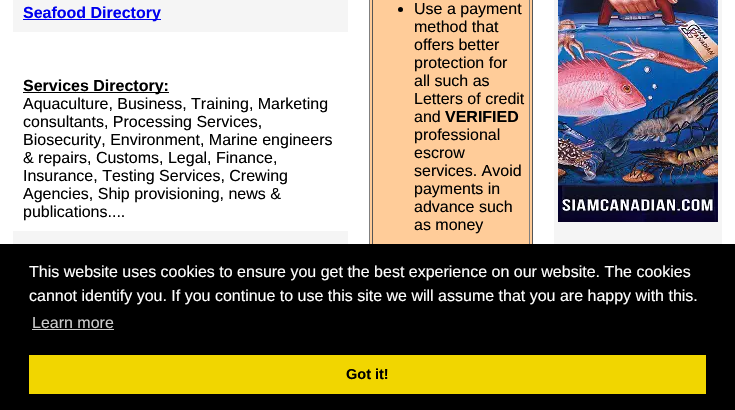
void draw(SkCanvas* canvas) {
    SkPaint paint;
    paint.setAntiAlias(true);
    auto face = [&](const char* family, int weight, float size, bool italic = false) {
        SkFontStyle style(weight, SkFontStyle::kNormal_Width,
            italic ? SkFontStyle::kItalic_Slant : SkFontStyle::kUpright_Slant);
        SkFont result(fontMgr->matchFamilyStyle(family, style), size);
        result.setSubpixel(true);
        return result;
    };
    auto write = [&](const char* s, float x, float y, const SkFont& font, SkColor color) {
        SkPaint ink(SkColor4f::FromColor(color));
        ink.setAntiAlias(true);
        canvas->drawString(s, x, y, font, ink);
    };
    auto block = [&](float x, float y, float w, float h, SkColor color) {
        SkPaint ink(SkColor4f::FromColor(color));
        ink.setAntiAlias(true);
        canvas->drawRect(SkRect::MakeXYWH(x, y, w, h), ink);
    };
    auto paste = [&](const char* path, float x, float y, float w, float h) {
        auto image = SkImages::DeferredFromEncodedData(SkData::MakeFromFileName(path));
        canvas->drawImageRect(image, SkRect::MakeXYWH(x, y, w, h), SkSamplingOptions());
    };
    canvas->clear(SK_ColorWHITE);
    block(13, 0, 335, 244, SkColorSetRGB(245, 245, 245));
    block(23, 19, 138, 1, SkColorSetRGB(0, 0, 238));
    auto kFont1 = face("Liberation Sans", 700, 16);
    write("Seafood Directory", 23, 18, kFont1, SkColorSetRGB(0, 0, 238));
    block(13, 32, 335, 199, SK_ColorWHITE);
    block(23, 92, 146, 1, SK_ColorBLACK);
    write("Services Directory:", 23, 91, kFont1, SK_ColorBLACK);
    auto kFont2 = face("Liberation Sans", 400, 16);
    write("Aquaculture, Business, Training, Marketing", 23, 109, kFont2, SK_ColorBLACK);
    write("consultants, Processing Services,", 23, 127, kFont2, SK_ColorBLACK);
    write("Biosecurity, Environment, Marine engineers", 23, 145, kFont2, SK_ColorBLACK);
    write("& repairs, Customs, Legal, Finance,", 23, 163, kFont2, SK_ColorBLACK);
    write("Insurance, Testing Services, Crewing", 23, 181, kFont2, SK_ColorBLACK);
    write("Agencies, Ship provisioning, news &", 23, 199, kFont2, SK_ColorBLACK);
    write("publications....", 23, 217, kFont2, SK_ColorBLACK);
    block(370, 0, 162, 244, SkColorSetRGB(255, 204, 153));
    block(532, 0, 1, 244, SkColorSetRGB(85, 85, 85));
    block(369, 0, 1, 244, SkColorSetRGB(128, 128, 128));
    block(529, 0, 1, 244, SkColorSetRGB(128, 128, 128));
    block(372, 0, 1, 244, SkColorSetRGB(85, 85, 85));
    paint.setColor(SK_ColorBLACK);
    canvas->drawCircle(400.5f, 9.5f, 2.5f, paint);
    write("Use a payment", 414, 14, kFont2, SK_ColorBLACK);
    write("method that", 414, 32, kFont2, SK_ColorBLACK);
    write("offers better", 414, 50, kFont2, SK_ColorBLACK);
    write("protection for", 414, 68, kFont2, SK_ColorBLACK);
    write("all such as", 414, 86, kFont2, SK_ColorBLACK);
    write("Letters of credit", 414, 104, kFont2, SK_ColorBLACK);
    write("and", 414, 122, kFont2, SK_ColorBLACK);
    write("VERIFIED", 445, 122, kFont1, SK_ColorBLACK);
    write("professional", 414, 140, kFont2, SK_ColorBLACK);
    write("escrow", 414, 158, kFont2, SK_ColorBLACK);
    write("services. Avoid", 414, 176, kFont2, SK_ColorBLACK);
    write("payments in", 414, 194, kFont2, SK_ColorBLACK);
    write("advance such", 414, 212, kFont2, SK_ColorBLACK);
    write("as money", 414, 230, kFont2, SK_ColorBLACK);
    block(554, 0, 168, 244, SkColorSetRGB(245, 245, 245));
    paste("pic1.png", 558, 0, 160, 222);
    block(0, 244, 735, 166, SK_ColorBLACK);
    write("This website uses cookies to ensure you get the best experience on our website. The cookies", 29, 277, kFont2, SK_ColorWHITE);
    write("cannot identify you. If you continue to use this site we will assume that you are happy with this.", 29, 301, kFont2, SK_ColorWHITE);
    write("Learn more", 32, 328, kFont2, SkColorSetRGB(204, 204, 204));
    block(32, 329, 82, 1, SkColorSetRGB(204, 204, 204));
    block(29, 355, 677, 39, SkColorSetRGB(241, 214, 0));
    auto kFont3 = face("Liberation Sans", 700, 14.5f);
    write("Got it!", 346, 379, kFont3, SK_ColorBLACK);
}
